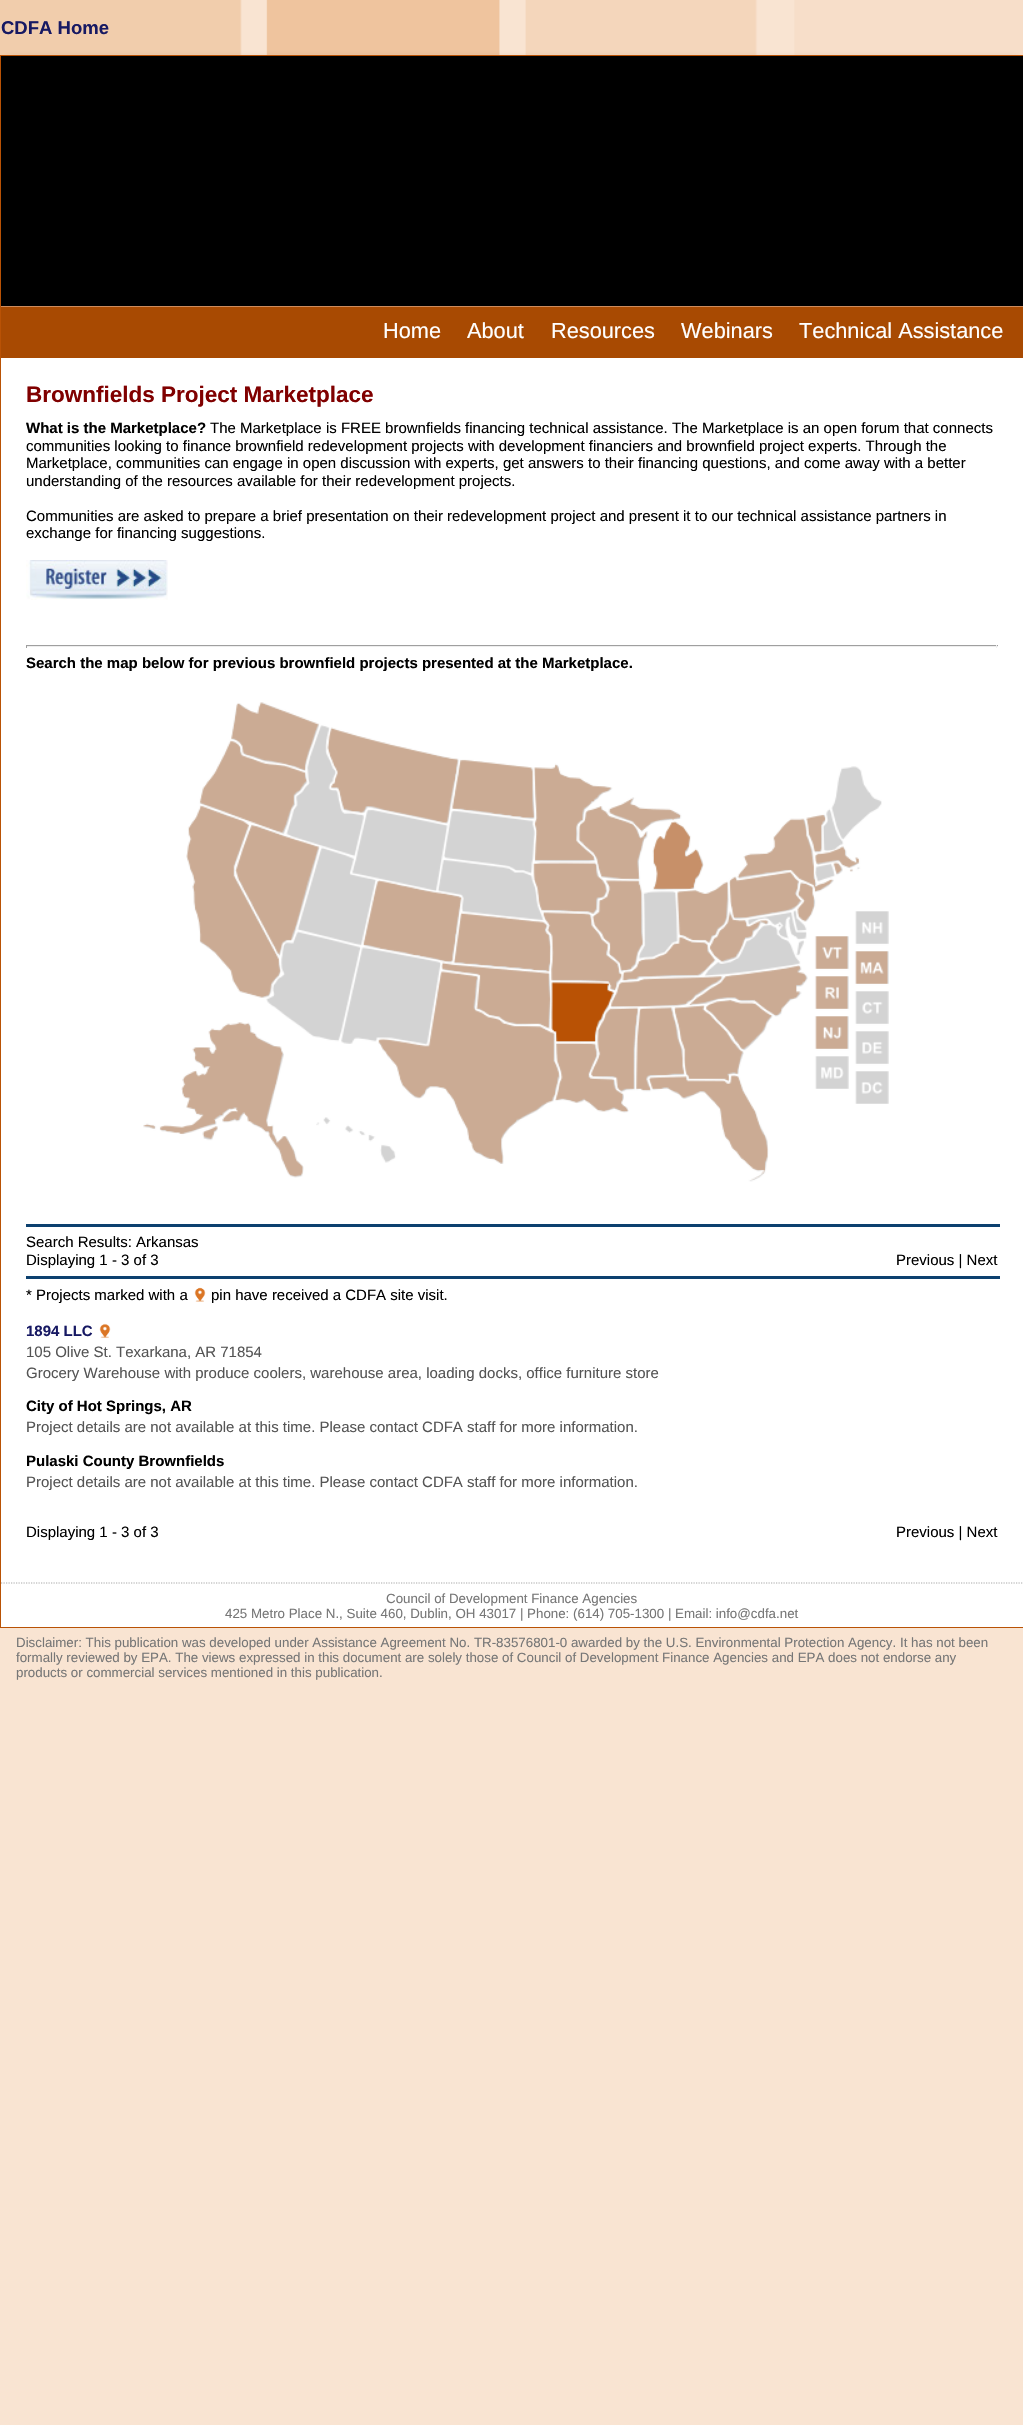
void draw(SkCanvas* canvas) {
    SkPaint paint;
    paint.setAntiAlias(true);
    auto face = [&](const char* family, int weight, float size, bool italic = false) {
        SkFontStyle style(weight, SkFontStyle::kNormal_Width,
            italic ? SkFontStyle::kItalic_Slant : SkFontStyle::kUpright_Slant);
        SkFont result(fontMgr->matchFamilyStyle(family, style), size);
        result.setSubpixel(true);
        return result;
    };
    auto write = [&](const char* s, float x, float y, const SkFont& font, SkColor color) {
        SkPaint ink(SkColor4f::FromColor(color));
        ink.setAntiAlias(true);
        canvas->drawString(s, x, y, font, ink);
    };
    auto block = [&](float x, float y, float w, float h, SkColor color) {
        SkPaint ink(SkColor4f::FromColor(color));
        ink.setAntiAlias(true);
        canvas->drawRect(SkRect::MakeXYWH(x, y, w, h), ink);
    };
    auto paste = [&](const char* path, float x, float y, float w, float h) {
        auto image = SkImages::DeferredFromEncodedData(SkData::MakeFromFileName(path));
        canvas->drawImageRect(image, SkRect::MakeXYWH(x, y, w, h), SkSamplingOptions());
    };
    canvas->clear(SkColorSetRGB(249, 228, 210));
    paste("pic1.png", 0, 0, 1023, 55);
    block(1, 358, 1022, 1269, SK_ColorWHITE);
    paint.setStyle(SkPaint::kStroke_Style);
    paint.setStrokeWidth(1);
    paint.setColor(SkColorSetRGB(185, 82, 5));
    canvas->drawRect(SkRect::MakeXYWH(0.5f, 55.5f, 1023, 1572), paint);
    auto kFont1 = face("Liberation Sans", 700, 18.5f);
    write("CDFA Home", 1, 34, kFont1, SkColorSetRGB(23, 25, 99));
    block(1, 56, 1022, 250, SK_ColorBLACK);
    block(1, 307, 1022, 51, SkColorSetRGB(168, 74, 2));
    block(1, 306, 1022, 1, SkColorSetRGB(206, 140, 93));
    auto kFont2 = face("Liberation Sans", 400, 21.75f);
    write("Home", 383, 338, kFont2, SK_ColorWHITE);
    write("About", 467, 338, kFont2, SK_ColorWHITE);
    write("Resources", 551, 338, kFont2, SK_ColorWHITE);
    write("Webinars", 681, 338, kFont2, SK_ColorWHITE);
    write("Technical Assistance", 799, 338, kFont2, SK_ColorWHITE);
    auto kFont3 = face("Liberation Sans", 700, 22.5f);
    write("Brownfields Project Marketplace", 26, 402, kFont3, SkColorSetRGB(128, 0, 0));
    auto kFont4 = face("Liberation Sans", 700, 15);
    write("What is the Marketplace?", 26, 433, kFont4, SK_ColorBLACK);
    auto kFont5 = face("Liberation Sans", 400, 15);
    write("The Marketplace is FREE brownfields financing technical assistance. The Marketplace is an open forum that connects", 210, 433, kFont5, SK_ColorBLACK);
    write("communities looking to finance brownfield redevelopment projects with development financiers and brownfield project experts. Through the", 26, 451, kFont5, SK_ColorBLACK);
    write("Marketplace, communities can engage in open discussion with experts, get answers to their financing questions, and come away with a better", 26, 468, kFont5, SK_ColorBLACK);
    write("understanding of the resources available for their redevelopment projects.", 26, 486, kFont5, SK_ColorBLACK);
    write("Communities are asked to prepare a brief presentation on their redevelopment project and present it to our technical assistance partners in", 26, 521, kFont5, SK_ColorBLACK);
    write("exchange for financing suggestions.", 26, 538, kFont5, SK_ColorBLACK);
    paste("pic2.png", 26, 560, 142, 40);
    block(26, 645, 972, 1, SkColorSetRGB(159, 159, 159));
    block(996, 645, 1, 3, SkColorSetRGB(238, 238, 238));
    block(26, 646, 972, 1, SkColorSetRGB(238, 238, 238));
    block(26, 645, 1, 3, SkColorSetRGB(159, 159, 159));
    write("Search the map below for previous brownfield projects presented at the Marketplace.", 26, 668, kFont4, SK_ColorBLACK);
    paste("pic3.png", 143, 702, 746, 480);
    paste("pic4.png", 143, 702, 745, 478);
    block(26, 1224, 974, 3, SkColorSetRGB(12, 64, 111));
    write("Search Results: Arkansas", 26, 1247, kFont5, SK_ColorBLACK);
    write("Displaying 1 - 3 of 3", 26, 1265, kFont5, SK_ColorBLACK);
    write("Previous | Next", 896, 1265, kFont5, SK_ColorBLACK);
    block(26, 1276, 974, 3, SkColorSetRGB(12, 64, 111));
    write("* Projects marked with a", 26, 1300, kFont5, SK_ColorBLACK);
    paste("pic5.png", 194, 1287, 12, 15);
    write("pin have received a CDFA site visit.", 211, 1300, kFont5, SK_ColorBLACK);
    write("1894 LLC", 26, 1336, kFont4, SkColorSetRGB(23, 25, 99));
    paste("pic6.png", 99, 1323, 12, 15);
    write("105 Olive St. Texarkana, AR 71854", 26, 1357, kFont5, SkColorSetRGB(85, 85, 85));
    write("Grocery Warehouse with produce coolers, warehouse area, loading docks, office furniture store", 26, 1378, kFont5, SkColorSetRGB(85, 85, 85));
    write("City of Hot Springs, AR", 26, 1411, kFont4, SK_ColorBLACK);
    write("Project details are not available at this time. Please contact CDFA staff for more information.", 26, 1432, kFont5, SkColorSetRGB(85, 85, 85));
    write("Pulaski County Brownfields", 26, 1466, kFont4, SK_ColorBLACK);
    write("Project details are not available at this time. Please contact CDFA staff for more information.", 26, 1487, kFont5, SkColorSetRGB(85, 85, 85));
    write("Displaying 1 - 3 of 3", 26, 1537, kFont5, SK_ColorBLACK);
    write("Previous | Next", 896, 1537, kFont5, SK_ColorBLACK);
    paint.setStrokeWidth(1.2f);
    paint.setColor(SkColorSetRGB(170, 170, 170));
    paint.setPathEffect(SkDashPathEffect::Make({{1.25f, 1.25f}}, 0));
    canvas->drawPath(SkPathBuilder().moveTo(1, 1583).lineTo(1022.5f, 1583).detach(), paint);
    paint.setPathEffect(nullptr);
    auto kFont6 = face("Liberation Sans", 400, 13.33f);
    write("Council of Development Finance Agencies", 386, 1603, kFont6, SkColorSetRGB(119, 119, 119));
    write("425 Metro Place N., Suite 460, Dublin, OH 43017 | Phone: (614) 705-1300 | Email: info@cdfa.net", 225, 1618, kFont6, SkColorSetRGB(119, 119, 119));
    write("Disclaimer: This publication was developed under Assistance Agreement No. TR-83576801-0 awarded by the U.S. Environmental Protection Agency. It has not been", 16, 1647, kFont6, SkColorSetRGB(119, 119, 119));
    write("formally reviewed by EPA. The views expressed in this document are solely those of Council of Development Finance Agencies and EPA does not endorse any", 16, 1662, kFont6, SkColorSetRGB(119, 119, 119));
    write("products or commercial services mentioned in this publication.", 16, 1677, kFont6, SkColorSetRGB(119, 119, 119));
}
